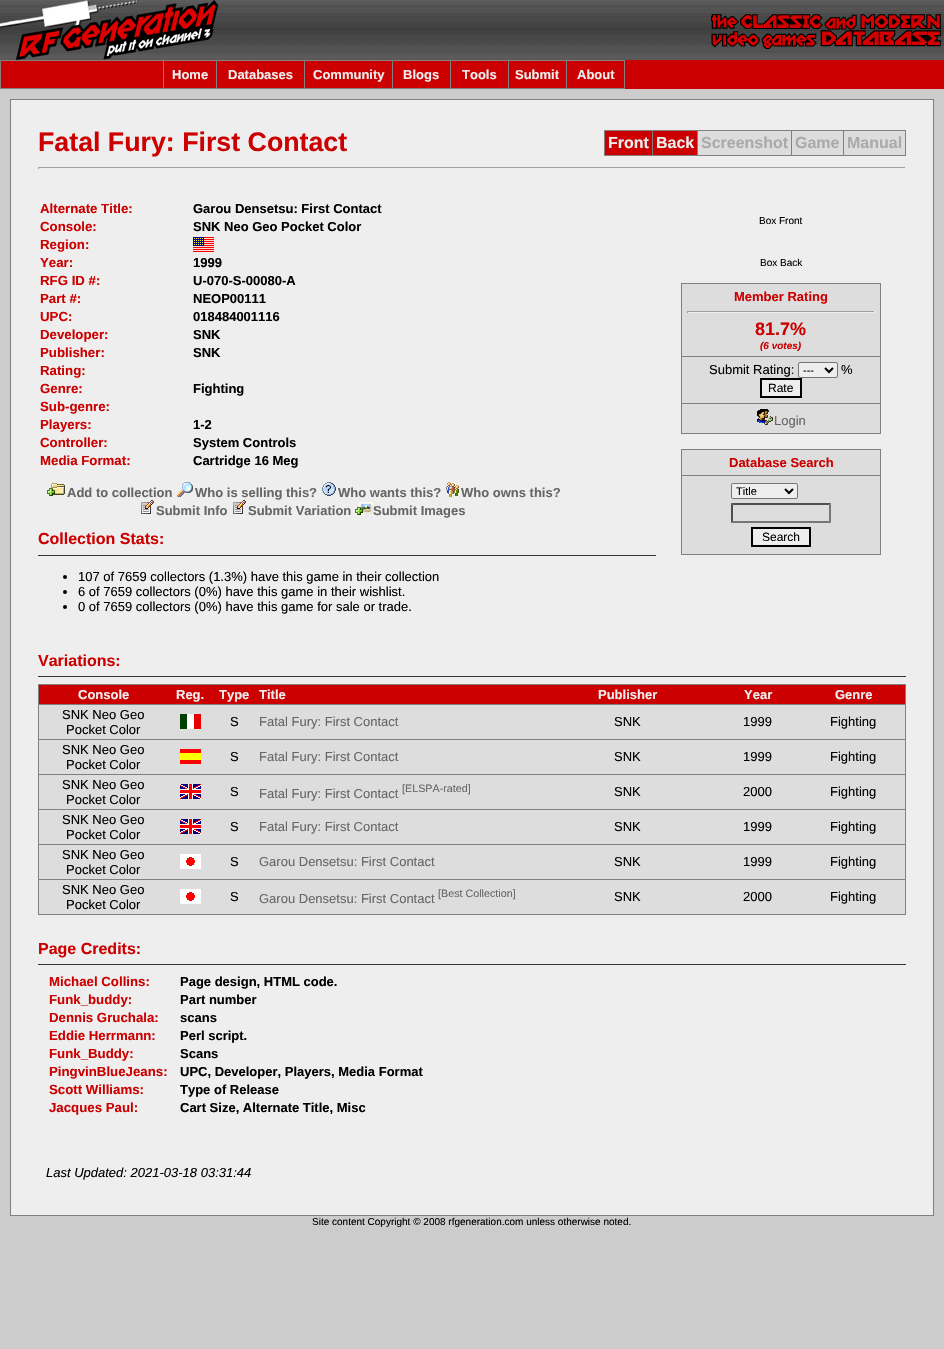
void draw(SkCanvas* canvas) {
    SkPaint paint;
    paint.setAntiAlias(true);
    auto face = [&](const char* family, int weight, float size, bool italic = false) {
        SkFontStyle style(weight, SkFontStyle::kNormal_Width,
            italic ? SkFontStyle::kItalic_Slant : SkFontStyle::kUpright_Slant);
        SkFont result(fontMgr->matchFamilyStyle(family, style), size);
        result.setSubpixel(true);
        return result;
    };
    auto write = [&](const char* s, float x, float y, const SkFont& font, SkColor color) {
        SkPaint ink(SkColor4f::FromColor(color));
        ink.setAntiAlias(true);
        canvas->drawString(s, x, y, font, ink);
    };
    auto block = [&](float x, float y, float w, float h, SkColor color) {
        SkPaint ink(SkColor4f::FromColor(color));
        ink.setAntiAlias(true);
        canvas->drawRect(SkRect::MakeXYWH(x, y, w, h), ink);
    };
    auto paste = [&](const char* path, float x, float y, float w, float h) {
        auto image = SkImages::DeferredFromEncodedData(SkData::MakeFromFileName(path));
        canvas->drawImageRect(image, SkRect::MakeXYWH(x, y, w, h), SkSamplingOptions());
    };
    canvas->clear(SkColorSetRGB(204, 204, 204));
    paste("pic1.png", 219, 0, 725, 60);
    paste("pic2.png", 0, 0, 219, 60);
    paste("pic3.png", 711, 14, 230, 35);
    block(625, 60, 319, 29, SkColorSetRGB(204, 0, 0));
    block(0, 60, 625, 29, SkColorSetRGB(128, 128, 128));
    block(1, 61, 162, 27, SkColorSetRGB(204, 0, 0));
    block(164, 61, 52, 27, SkColorSetRGB(204, 0, 0));
    auto kFont1 = face("Liberation Sans", 700, 13);
    write("Home", 172, 79, kFont1, SkColorSetRGB(238, 238, 238));
    block(217, 61, 87, 27, SkColorSetRGB(204, 0, 0));
    write("Databases", 228, 79, kFont1, SkColorSetRGB(238, 238, 238));
    block(305, 61, 87, 27, SkColorSetRGB(204, 0, 0));
    write("Community", 313, 79, kFont1, SkColorSetRGB(238, 238, 238));
    block(393, 61, 57, 27, SkColorSetRGB(204, 0, 0));
    write("Blogs", 403, 79, kFont1, SkColorSetRGB(238, 238, 238));
    block(451, 61, 57, 27, SkColorSetRGB(204, 0, 0));
    write("Tools", 462, 79, kFont1, SkColorSetRGB(238, 238, 238));
    block(509, 61, 57, 27, SkColorSetRGB(204, 0, 0));
    write("Submit", 515, 79, kFont1, SkColorSetRGB(238, 238, 238));
    block(567, 61, 57, 27, SkColorSetRGB(204, 0, 0));
    write("About", 577, 79, kFont1, SkColorSetRGB(238, 238, 238));
    block(10, 99, 924, 1117, SkColorSetRGB(128, 128, 128));
    block(11, 100, 922, 1115, SkColorSetRGB(238, 238, 238));
    auto kFont2 = face("Liberation Sans", 700, 26.75f);
    write("Fatal Fury: First Contact", 38, 151, kFont2, SkColorSetRGB(204, 0, 0));
    block(604, 130, 302, 26, SkColorSetRGB(128, 128, 128));
    block(605, 131, 47, 24, SkColorSetRGB(204, 0, 0));
    auto kFont3 = face("Liberation Sans", 700, 16);
    write("Front", 608, 148, kFont3, SkColorSetRGB(238, 238, 238));
    block(653, 131, 44, 24, SkColorSetRGB(204, 0, 0));
    write("Back", 656, 148, kFont3, SkColorSetRGB(238, 238, 238));
    block(698, 131, 93, 24, SkColorSetRGB(221, 221, 221));
    write("Screenshot", 701, 148, kFont3, SkColorSetRGB(170, 170, 170));
    block(792, 131, 51, 24, SkColorSetRGB(221, 221, 221));
    write("Game", 795, 148, kFont3, SkColorSetRGB(170, 170, 170));
    block(844, 131, 61, 24, SkColorSetRGB(221, 221, 221));
    write("Manual", 847, 148, kFont3, SkColorSetRGB(170, 170, 170));
    block(38, 167, 868, 1, SkColorSetRGB(159, 159, 159));
    block(905, 167, 1, 2, SkColorSetRGB(238, 238, 238));
    block(38, 167, 1, 2, SkColorSetRGB(159, 159, 159));
    auto kFont4 = face("Liberation Sans", 700, 13.25f);
    write("Alternate Title:", 40, 213, kFont4, SkColorSetRGB(204, 0, 0));
    write("Garou Densetsu: First Contact", 193, 213, kFont1, SK_ColorBLACK);
    write("Console:", 40, 231, kFont4, SkColorSetRGB(204, 0, 0));
    write("SNK Neo Geo Pocket Color", 193, 231, kFont1, SK_ColorBLACK);
    write("Region:", 40, 249, kFont4, SkColorSetRGB(204, 0, 0));
    paste("pic4.png", 193, 237, 21, 15);
    write("Year:", 40, 267, kFont4, SkColorSetRGB(204, 0, 0));
    write("1999", 193, 267, kFont1, SK_ColorBLACK);
    write("RFG ID #:", 40, 285, kFont4, SkColorSetRGB(204, 0, 0));
    write("U-070-S-00080-A", 193, 285, kFont1, SK_ColorBLACK);
    write("Part #:", 40, 303, kFont4, SkColorSetRGB(204, 0, 0));
    write("NEOP00111", 193, 303, kFont1, SK_ColorBLACK);
    write("UPC:", 40, 321, kFont4, SkColorSetRGB(204, 0, 0));
    write("018484001116", 193, 321, kFont1, SK_ColorBLACK);
    write("Developer:", 40, 339, kFont4, SkColorSetRGB(204, 0, 0));
    write("SNK", 193, 339, kFont1, SK_ColorBLACK);
    write("Publisher:", 40, 357, kFont4, SkColorSetRGB(204, 0, 0));
    write("SNK", 193, 357, kFont1, SK_ColorBLACK);
    write("Rating:", 40, 375, kFont4, SkColorSetRGB(204, 0, 0));
    write("Genre:", 40, 393, kFont4, SkColorSetRGB(204, 0, 0));
    write("Fighting", 193, 393, kFont1, SK_ColorBLACK);
    write("Sub-genre:", 40, 411, kFont4, SkColorSetRGB(204, 0, 0));
    write("Players:", 40, 429, kFont4, SkColorSetRGB(204, 0, 0));
    write("1-2", 193, 429, kFont1, SK_ColorBLACK);
    write("Controller:", 40, 447, kFont4, SkColorSetRGB(204, 0, 0));
    write("System Controls", 193, 447, kFont1, SK_ColorBLACK);
    write("Media Format:", 40, 465, kFont4, SkColorSetRGB(204, 0, 0));
    write("Cartridge 16 Meg", 193, 465, kFont1, SK_ColorBLACK);
    auto kFont5 = face("Liberation Sans", 400, 10);
    write("Box Front", 759, 224, kFont5, SK_ColorBLACK);
    write("Box Back", 760, 266, kFont5, SK_ColorBLACK);
    block(681, 283, 200, 151, SkColorSetRGB(128, 128, 128));
    block(682, 284, 198, 72, SkColorSetRGB(221, 221, 221));
    write("Member Rating", 734, 301, kFont1, SkColorSetRGB(204, 0, 0));
    block(687, 311, 188, 1, SkColorSetRGB(159, 159, 159));
    block(874, 311, 1, 2, SkColorSetRGB(238, 238, 238));
    block(687, 312, 188, 1, SkColorSetRGB(238, 238, 238));
    block(687, 311, 1, 2, SkColorSetRGB(159, 159, 159));
    auto kFont6 = face("Liberation Sans", 700, 18);
    write("81.7%", 755, 335, kFont6, SkColorSetRGB(204, 0, 0));
    auto kFont7 = face("Liberation Sans", 700, 10, true);
    write("(6 votes)", 760, 349, kFont7, SkColorSetRGB(204, 0, 0));
    block(682, 357, 198, 46, SkColorSetRGB(221, 221, 221));
    auto kFont8 = face("Liberation Sans", 400, 13);
    write("Submit Rating:", 709, 374, kFont8, SK_ColorBLACK);
    paint.setColor(SkColorSetRGB(238, 238, 238));
    canvas->drawRoundRect(SkRect::MakeXYWH(798.5f, 362.5f, 39, 15), 1.5f, 1.5f, paint);
    paint.setStyle(SkPaint::kStroke_Style);
    paint.setStrokeWidth(1);
    paint.setColor(SkColorSetRGB(118, 118, 118));
    canvas->drawRoundRect(SkRect::MakeXYWH(798.5f, 362.5f, 39, 15), 1.5f, 1.5f, paint);
    paint.setStrokeWidth(2);
    paint.setColor(SK_ColorBLACK);
    canvas->drawPath(SkPathBuilder().moveTo(825, 368).lineTo(829, 372).lineTo(833, 368).detach(), paint);
    auto kFont9 = face("Liberation Sans", 400, 11);
    write("---", 803, 374, kFont9, SK_ColorBLACK);
    write("%", 841, 374, kFont8, SK_ColorBLACK);
    paint.setStyle(SkPaint::kFill_Style);
    paint.setColor(SkColorSetRGB(238, 238, 238));
    canvas->drawRect(SkRect::MakeXYWH(761, 379, 40, 18), paint);
    paint.setStyle(SkPaint::kStroke_Style);
    paint.setColor(SK_ColorBLACK);
    canvas->drawRect(SkRect::MakeXYWH(761, 379, 40, 18), paint);
    auto kFont10 = face("Liberation Sans", 400, 12);
    write("Rate", 768, 392, kFont10, SK_ColorBLACK);
    block(682, 404, 198, 29, SkColorSetRGB(221, 221, 221));
    paste("pic5.png", 757, 409, 16, 16);
    write("Login", 774, 425, kFont8, SkColorSetRGB(102, 102, 102));
    block(681, 449, 200, 106, SkColorSetRGB(128, 128, 128));
    block(682, 450, 198, 25, SkColorSetRGB(221, 221, 221));
    write("Database Search", 729, 467, kFont1, SkColorSetRGB(204, 0, 0));
    block(682, 476, 198, 78, SkColorSetRGB(221, 221, 221));
    paint.setStyle(SkPaint::kFill_Style);
    paint.setColor(SkColorSetRGB(238, 238, 238));
    canvas->drawRoundRect(SkRect::MakeXYWH(731.5f, 483.5f, 66, 15), 1.5f, 1.5f, paint);
    paint.setStyle(SkPaint::kStroke_Style);
    paint.setStrokeWidth(1);
    paint.setColor(SkColorSetRGB(118, 118, 118));
    canvas->drawRoundRect(SkRect::MakeXYWH(731.5f, 483.5f, 66, 15), 1.5f, 1.5f, paint);
    paint.setStrokeWidth(2);
    paint.setColor(SK_ColorBLACK);
    canvas->drawPath(SkPathBuilder().moveTo(785, 489).lineTo(789, 493).lineTo(793, 489).detach(), paint);
    write("Title", 736, 495, kFont9, SK_ColorBLACK);
    paint.setStyle(SkPaint::kFill_Style);
    paint.setColor(SkColorSetRGB(79, 79, 79));
    canvas->drawPath(SkPathBuilder().moveTo(731, 503).lineTo(831, 503).lineTo(829, 505).lineTo(733, 505).close().detach(), paint);
    paint.setColor(SkColorSetRGB(118, 118, 118));
    canvas->drawPath(SkPathBuilder().moveTo(831, 503).lineTo(831, 523).lineTo(829, 521).lineTo(829, 505).close().detach(), paint);
    canvas->drawPath(SkPathBuilder().moveTo(831, 523).lineTo(731, 523).lineTo(733, 521).lineTo(829, 521).close().detach(), paint);
    paint.setColor(SkColorSetRGB(79, 79, 79));
    canvas->drawPath(SkPathBuilder().moveTo(731, 523).lineTo(731, 503).lineTo(733, 505).lineTo(733, 521).close().detach(), paint);
    paint.setColor(SkColorSetRGB(238, 238, 238));
    canvas->drawRect(SkRect::MakeXYWH(752, 528, 58, 18), paint);
    paint.setStyle(SkPaint::kStroke_Style);
    paint.setColor(SK_ColorBLACK);
    canvas->drawRect(SkRect::MakeXYWH(752, 528, 58, 18), paint);
    write("Search", 762, 541, kFont10, SK_ColorBLACK);
    paste("pic6.png", 47, 483, 18, 13);
    write("Add to collection", 67, 497, kFont1, SkColorSetRGB(102, 102, 102));
    paste("pic7.png", 177, 482, 16, 15);
    write("Who is selling this?", 195, 497, kFont1, SkColorSetRGB(102, 102, 102));
    paste("pic8.png", 322, 482, 14, 14);
    write("Who wants this?", 338, 497, kFont1, SkColorSetRGB(102, 102, 102));
    paste("pic9.png", 446, 482, 13, 15);
    write("Who owns this?", 461, 497, kFont1, SkColorSetRGB(102, 102, 102));
    paste("pic10.png", 141, 500, 13, 14);
    write("Submit Info", 156, 515, kFont1, SkColorSetRGB(102, 102, 102));
    paste("pic10.png", 233, 500, 13, 14);
    write("Submit Variation", 248, 515, kFont1, SkColorSetRGB(102, 102, 102));
    paste("pic11.png", 355, 502, 18, 13);
    write("Submit Images", 373, 515, kFont1, SkColorSetRGB(102, 102, 102));
    write("Collection Stats:", 38, 544, kFont3, SkColorSetRGB(204, 0, 0));
    block(38, 555, 618, 1, SkColorSetRGB(51, 51, 51));
    paint.setStyle(SkPaint::kFill_Style);
    canvas->drawCircle(65, 577, 2, paint);
    write("107 of 7659 collectors (1.3%) have this game in their collection", 78, 581, kFont8, SK_ColorBLACK);
    canvas->drawCircle(65, 592, 2, paint);
    write("6 of 7659 collectors (0%) have this game in their wishlist.", 78, 596, kFont8, SK_ColorBLACK);
    canvas->drawCircle(65, 607, 2, paint);
    write("0 of 7659 collectors (0%) have this game for sale or trade.", 78, 611, kFont8, SK_ColorBLACK);
    write("Variations:", 38, 666, kFont3, SkColorSetRGB(204, 0, 0));
    block(38, 676, 868, 1, SkColorSetRGB(51, 51, 51));
    block(38, 684, 868, 231, SkColorSetRGB(128, 128, 128));
    block(39, 685, 866, 19, SkColorSetRGB(204, 0, 0));
    write("Console", 78, 699, kFont1, SkColorSetRGB(238, 238, 238));
    write("Reg.", 176, 699, kFont1, SkColorSetRGB(238, 238, 238));
    write("Type", 219, 699, kFont1, SkColorSetRGB(238, 238, 238));
    write("Title", 259, 699, kFont1, SkColorSetRGB(238, 238, 238));
    write("Publisher", 598, 699, kFont1, SkColorSetRGB(238, 238, 238));
    write("Year", 744, 699, kFont1, SkColorSetRGB(238, 238, 238));
    write("Genre", 835, 699, kFont1, SkColorSetRGB(238, 238, 238));
    block(39, 705, 866, 34, SkColorSetRGB(221, 221, 221));
    write("SNK Neo Geo", 62, 719, kFont8, SK_ColorBLACK);
    write("Pocket Color", 66, 734, kFont8, SK_ColorBLACK);
    paste("pic12.png", 180, 714, 21, 15);
    write("S", 230, 726, kFont8, SK_ColorBLACK);
    write("Fatal Fury: First Contact", 259, 726, kFont8, SkColorSetRGB(102, 102, 102));
    write("SNK", 614, 726, kFont8, SK_ColorBLACK);
    write("1999", 743, 726, kFont8, SK_ColorBLACK);
    write("Fighting", 830, 726, kFont8, SK_ColorBLACK);
    block(39, 740, 866, 34, SkColorSetRGB(221, 221, 221));
    write("SNK Neo Geo", 62, 754, kFont8, SK_ColorBLACK);
    write("Pocket Color", 66, 769, kFont8, SK_ColorBLACK);
    paste("pic13.png", 180, 749, 21, 15);
    write("S", 230, 761, kFont8, SK_ColorBLACK);
    write("Fatal Fury: First Contact", 259, 761, kFont8, SkColorSetRGB(102, 102, 102));
    write("SNK", 614, 761, kFont8, SK_ColorBLACK);
    write("1999", 743, 761, kFont8, SK_ColorBLACK);
    write("Fighting", 830, 761, kFont8, SK_ColorBLACK);
    block(39, 775, 866, 34, SkColorSetRGB(221, 221, 221));
    write("SNK Neo Geo", 62, 789, kFont8, SK_ColorBLACK);
    write("Pocket Color", 66, 804, kFont8, SK_ColorBLACK);
    paste("pic14.png", 180, 784, 21, 15);
    write("S", 230, 796, kFont8, SK_ColorBLACK);
    write("Fatal Fury: First Contact", 259, 798, kFont8, SkColorSetRGB(102, 102, 102));
    auto kFont11 = face("Liberation Sans", 400, 10.75f);
    write("[ELSPA-rated]", 402, 792, kFont11, SkColorSetRGB(102, 102, 102));
    write("SNK", 614, 796, kFont8, SK_ColorBLACK);
    write("2000", 743, 796, kFont8, SK_ColorBLACK);
    write("Fighting", 830, 796, kFont8, SK_ColorBLACK);
    block(39, 810, 866, 34, SkColorSetRGB(221, 221, 221));
    write("SNK Neo Geo", 62, 824, kFont8, SK_ColorBLACK);
    write("Pocket Color", 66, 839, kFont8, SK_ColorBLACK);
    paste("pic14.png", 180, 819, 21, 15);
    write("S", 230, 831, kFont8, SK_ColorBLACK);
    write("Fatal Fury: First Contact", 259, 831, kFont8, SkColorSetRGB(102, 102, 102));
    write("SNK", 614, 831, kFont8, SK_ColorBLACK);
    write("1999", 743, 831, kFont8, SK_ColorBLACK);
    write("Fighting", 830, 831, kFont8, SK_ColorBLACK);
    block(39, 845, 866, 34, SkColorSetRGB(221, 221, 221));
    write("SNK Neo Geo", 62, 859, kFont8, SK_ColorBLACK);
    write("Pocket Color", 66, 874, kFont8, SK_ColorBLACK);
    paste("pic15.png", 180, 854, 21, 15);
    write("S", 230, 866, kFont8, SK_ColorBLACK);
    write("Garou Densetsu: First Contact", 259, 866, kFont8, SkColorSetRGB(102, 102, 102));
    write("SNK", 614, 866, kFont8, SK_ColorBLACK);
    write("1999", 743, 866, kFont8, SK_ColorBLACK);
    write("Fighting", 830, 866, kFont8, SK_ColorBLACK);
    block(39, 880, 866, 34, SkColorSetRGB(221, 221, 221));
    write("SNK Neo Geo", 62, 894, kFont8, SK_ColorBLACK);
    write("Pocket Color", 66, 909, kFont8, SK_ColorBLACK);
    paste("pic15.png", 180, 889, 21, 15);
    write("S", 230, 901, kFont8, SK_ColorBLACK);
    write("Garou Densetsu: First Contact", 259, 903, kFont8, SkColorSetRGB(102, 102, 102));
    write("[Best Collection]", 438, 897, kFont11, SkColorSetRGB(102, 102, 102));
    write("SNK", 614, 901, kFont8, SK_ColorBLACK);
    write("2000", 743, 901, kFont8, SK_ColorBLACK);
    write("Fighting", 830, 901, kFont8, SK_ColorBLACK);
    write("Page Credits:", 38, 954, kFont3, SkColorSetRGB(204, 0, 0));
    block(38, 964, 868, 1, SkColorSetRGB(51, 51, 51));
    write("Michael Collins:", 49, 986, kFont4, SkColorSetRGB(204, 0, 0));
    write("Page design, HTML code.", 180, 986, kFont1, SK_ColorBLACK);
    write("Funk_buddy:", 49, 1004, kFont4, SkColorSetRGB(204, 0, 0));
    write("Part number", 180, 1004, kFont1, SK_ColorBLACK);
    write("Dennis Gruchala:", 49, 1022, kFont4, SkColorSetRGB(204, 0, 0));
    write("scans", 180, 1022, kFont1, SK_ColorBLACK);
    write("Eddie Herrmann:", 49, 1040, kFont4, SkColorSetRGB(204, 0, 0));
    write("Perl script.", 180, 1040, kFont1, SK_ColorBLACK);
    write("Funk_Buddy:", 49, 1058, kFont4, SkColorSetRGB(204, 0, 0));
    write("Scans", 180, 1058, kFont1, SK_ColorBLACK);
    write("PingvinBlueJeans:", 49, 1076, kFont4, SkColorSetRGB(204, 0, 0));
    write("UPC, Developer, Players, Media Format", 180, 1076, kFont1, SK_ColorBLACK);
    write("Scott Williams:", 49, 1094, kFont4, SkColorSetRGB(204, 0, 0));
    write("Type of Release", 180, 1094, kFont1, SK_ColorBLACK);
    write("Jacques Paul:", 49, 1112, kFont4, SkColorSetRGB(204, 0, 0));
    write("Cart Size, Alternate Title, Misc", 180, 1112, kFont1, SK_ColorBLACK);
    auto kFont12 = face("Liberation Sans", 400, 13, true);
    write("Last Updated: 2021-03-18 03:31:44", 46, 1177, kFont12, SK_ColorBLACK);
    write("Site content Copyright © 2008 rfgeneration.com unless otherwise noted.", 312, 1225, kFont5, SK_ColorBLACK);
}
